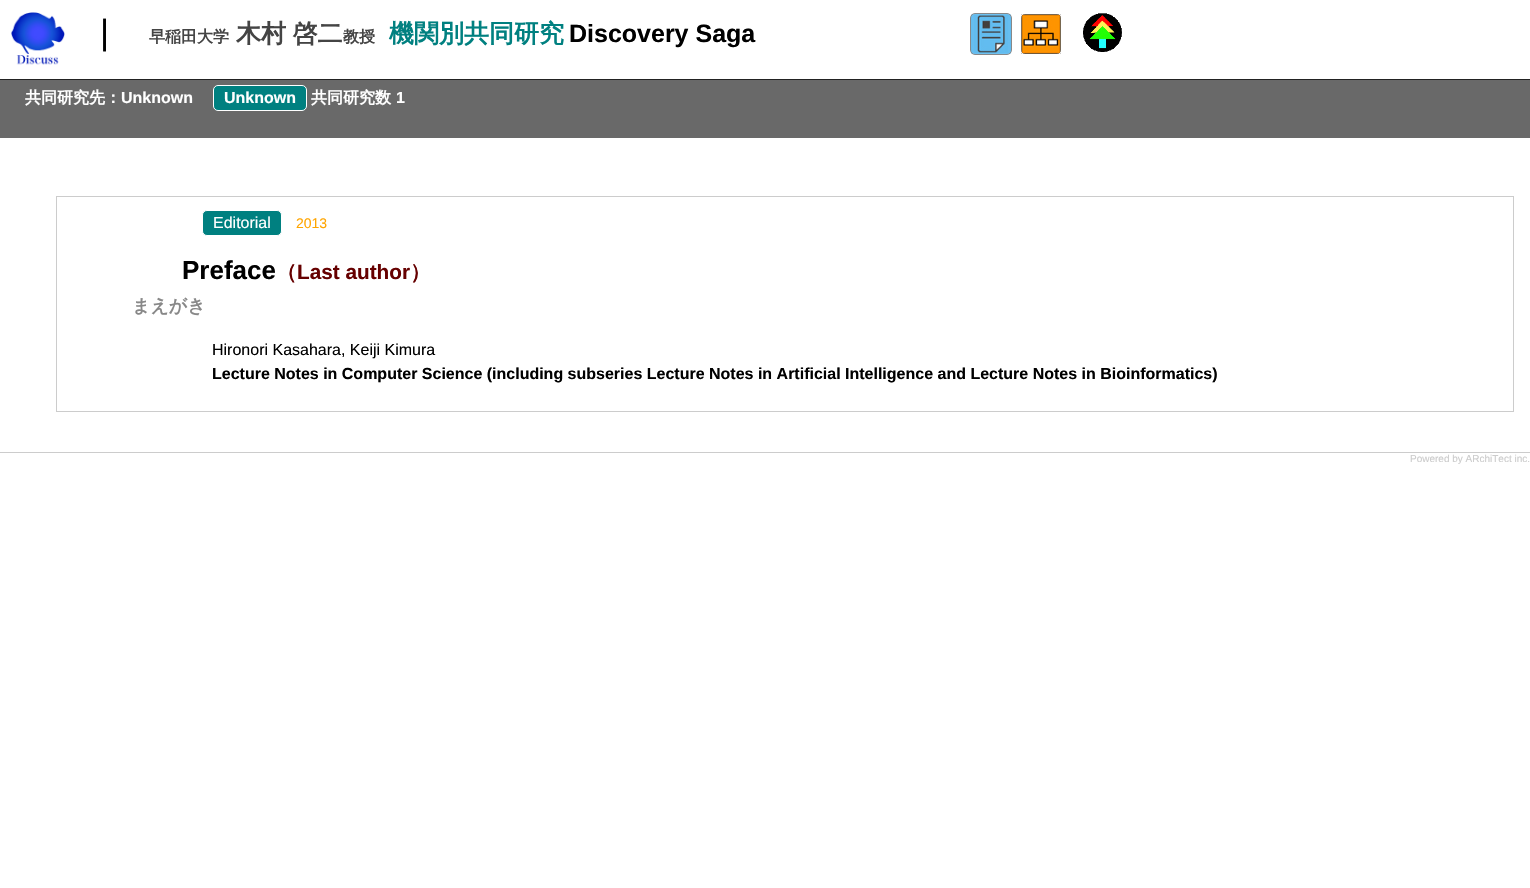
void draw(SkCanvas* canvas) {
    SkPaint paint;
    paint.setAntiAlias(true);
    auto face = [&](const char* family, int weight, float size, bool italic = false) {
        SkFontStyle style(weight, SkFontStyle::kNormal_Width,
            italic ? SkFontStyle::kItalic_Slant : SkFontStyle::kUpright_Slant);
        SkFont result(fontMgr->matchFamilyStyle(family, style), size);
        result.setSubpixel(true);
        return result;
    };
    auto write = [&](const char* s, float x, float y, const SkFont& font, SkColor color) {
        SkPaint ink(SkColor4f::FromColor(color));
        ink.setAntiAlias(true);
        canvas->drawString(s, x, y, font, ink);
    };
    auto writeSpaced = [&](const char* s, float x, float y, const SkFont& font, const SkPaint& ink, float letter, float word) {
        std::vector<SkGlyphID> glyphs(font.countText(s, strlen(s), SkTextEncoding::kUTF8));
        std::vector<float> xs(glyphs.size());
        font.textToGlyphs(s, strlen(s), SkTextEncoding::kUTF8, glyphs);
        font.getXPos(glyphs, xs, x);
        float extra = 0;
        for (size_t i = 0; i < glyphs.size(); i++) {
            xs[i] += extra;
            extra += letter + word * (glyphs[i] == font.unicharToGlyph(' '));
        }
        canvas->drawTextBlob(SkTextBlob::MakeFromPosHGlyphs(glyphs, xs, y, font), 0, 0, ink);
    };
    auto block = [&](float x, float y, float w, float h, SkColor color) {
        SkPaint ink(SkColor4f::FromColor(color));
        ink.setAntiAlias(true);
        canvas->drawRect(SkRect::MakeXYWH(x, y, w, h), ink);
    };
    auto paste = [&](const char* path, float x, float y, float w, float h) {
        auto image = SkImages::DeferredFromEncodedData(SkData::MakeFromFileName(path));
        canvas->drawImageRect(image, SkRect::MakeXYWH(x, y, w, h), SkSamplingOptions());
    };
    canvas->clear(SK_ColorWHITE);
    block(0, 79, 1530, 1, SkColorSetRGB(34, 34, 34));
    paste("pic1.png", 11, 12, 54, 53);
    auto kFont1 = face("Liberation Sans", 400, 35);
    write("|", 100, 44, kFont1, SK_ColorBLACK);
    auto kFont2 = face("WenQuanYi Zen Hei", 700, 16);
    write("早稲田大学", 149, 42, kFont2, SkColorSetRGB(68, 68, 68));
    auto kFont3 = face("WenQuanYi Zen Hei", 700, 25);
    paint.setColor(SkColorSetRGB(68, 68, 68));
    writeSpaced("木村 啓二", 236, 42, kFont3, paint, 0, -1);
    write("教授", 343, 42, kFont2, SkColorSetRGB(68, 68, 68));
    write("機関別共同研究", 389, 42, kFont3, SkColorSetRGB(0, 128, 128));
    auto kFont4 = face("Liberation Sans", 700, 25);
    write("Discovery Saga", 569, 42, kFont4, SK_ColorBLACK);
    paste("pic2.png", 971, 14, 40, 40);
    paint.setStyle(SkPaint::kStroke_Style);
    paint.setStrokeWidth(1);
    paint.setColor(SkColorSetRGB(136, 136, 136));
    canvas->drawRoundRect(SkRect::MakeXYWH(970.5f, 13.5f, 41, 41), 4.5f, 4.5f, paint);
    paste("pic3.png", 1021, 14, 40, 40);
    paint.setColor(SK_ColorWHITE);
    canvas->drawRoundRect(SkRect::MakeXYWH(1020.5f, 13.5f, 41, 41), 4.5f, 4.5f, paint);
    paste("pic4.png", 1083, 13, 39, 39);
    block(0, 80, 1530, 58, SkColorSetRGB(105, 105, 105));
    write("共同研究先：", 25, 103, kFont2, SK_ColorWHITE);
    auto kFont5 = face("Liberation Sans", 700, 16);
    write("Unknown", 121, 103, kFont5, SK_ColorWHITE);
    paint.setStyle(SkPaint::kFill_Style);
    paint.setColor(SkColorSetRGB(0, 128, 128));
    canvas->drawRoundRect(SkRect::MakeXYWH(213.5f, 85.5f, 93, 25), 4.5f, 4.5f, paint);
    paint.setStyle(SkPaint::kStroke_Style);
    paint.setColor(SK_ColorWHITE);
    canvas->drawRoundRect(SkRect::MakeXYWH(213.5f, 85.5f, 93, 25), 4.5f, 4.5f, paint);
    write("Unknown", 224, 103, kFont5, SK_ColorWHITE);
    write("共同研究数", 311, 103, kFont2, SK_ColorWHITE);
    write("1", 396, 103, kFont5, SK_ColorWHITE);
    paint.setColor(SkColorSetRGB(204, 204, 204));
    canvas->drawRect(SkRect::MakeXYWH(56.5f, 196.5f, 1457, 215), paint);
    paint.setStyle(SkPaint::kFill_Style);
    paint.setColor(SkColorSetRGB(0, 128, 128));
    canvas->drawRoundRect(SkRect::MakeXYWH(202.5f, 210.5f, 79, 25), 4.5f, 4.5f, paint);
    paint.setStyle(SkPaint::kStroke_Style);
    paint.setColor(SK_ColorWHITE);
    canvas->drawRoundRect(SkRect::MakeXYWH(202.5f, 210.5f, 79, 25), 4.5f, 4.5f, paint);
    auto kFont6 = face("Liberation Sans", 400, 16);
    write("Editorial", 213, 228, kFont6, SK_ColorWHITE);
    auto kFont7 = face("Liberation Sans", 400, 14);
    write("2013", 296, 228, kFont7, SkColorSetRGB(255, 165, 0));
    auto kFont8 = face("Liberation Sans", 700, 26);
    write("Preface", 182, 279, kFont8, SK_ColorBLACK);
    auto kFont9 = face("WenQuanYi Zen Hei", 700, 20.75f);
    write("（", 276, 279, kFont9, SkColorSetRGB(102, 0, 0));
    auto kFont10 = face("Liberation Sans", 700, 20.75f);
    write("Last author", 297, 279, kFont10, SkColorSetRGB(102, 0, 0));
    write("）", 410, 279, kFont9, SkColorSetRGB(102, 0, 0));
    auto kFont11 = face("WenQuanYi Zen Hei", 700, 18);
    write("まえがき", 132, 312, kFont11, SkColorSetRGB(136, 136, 136));
    write("Hironori Kasahara, Keiji Kimura", 212, 355, kFont6, SK_ColorBLACK);
    write("Lecture Notes in Computer Science (including subseries Lecture Notes in Artificial Intelligence and Lecture Notes in Bioinformatics)", 212, 379, kFont5, SK_ColorBLACK);
    block(0, 452, 1530, 1, SkColorSetRGB(204, 204, 204));
    auto kFont12 = face("Liberation Sans", 400, 10);
    write("Powered by ARchiTect inc.", 1410, 462, kFont12, SkColorSetRGB(204, 204, 204));
}
